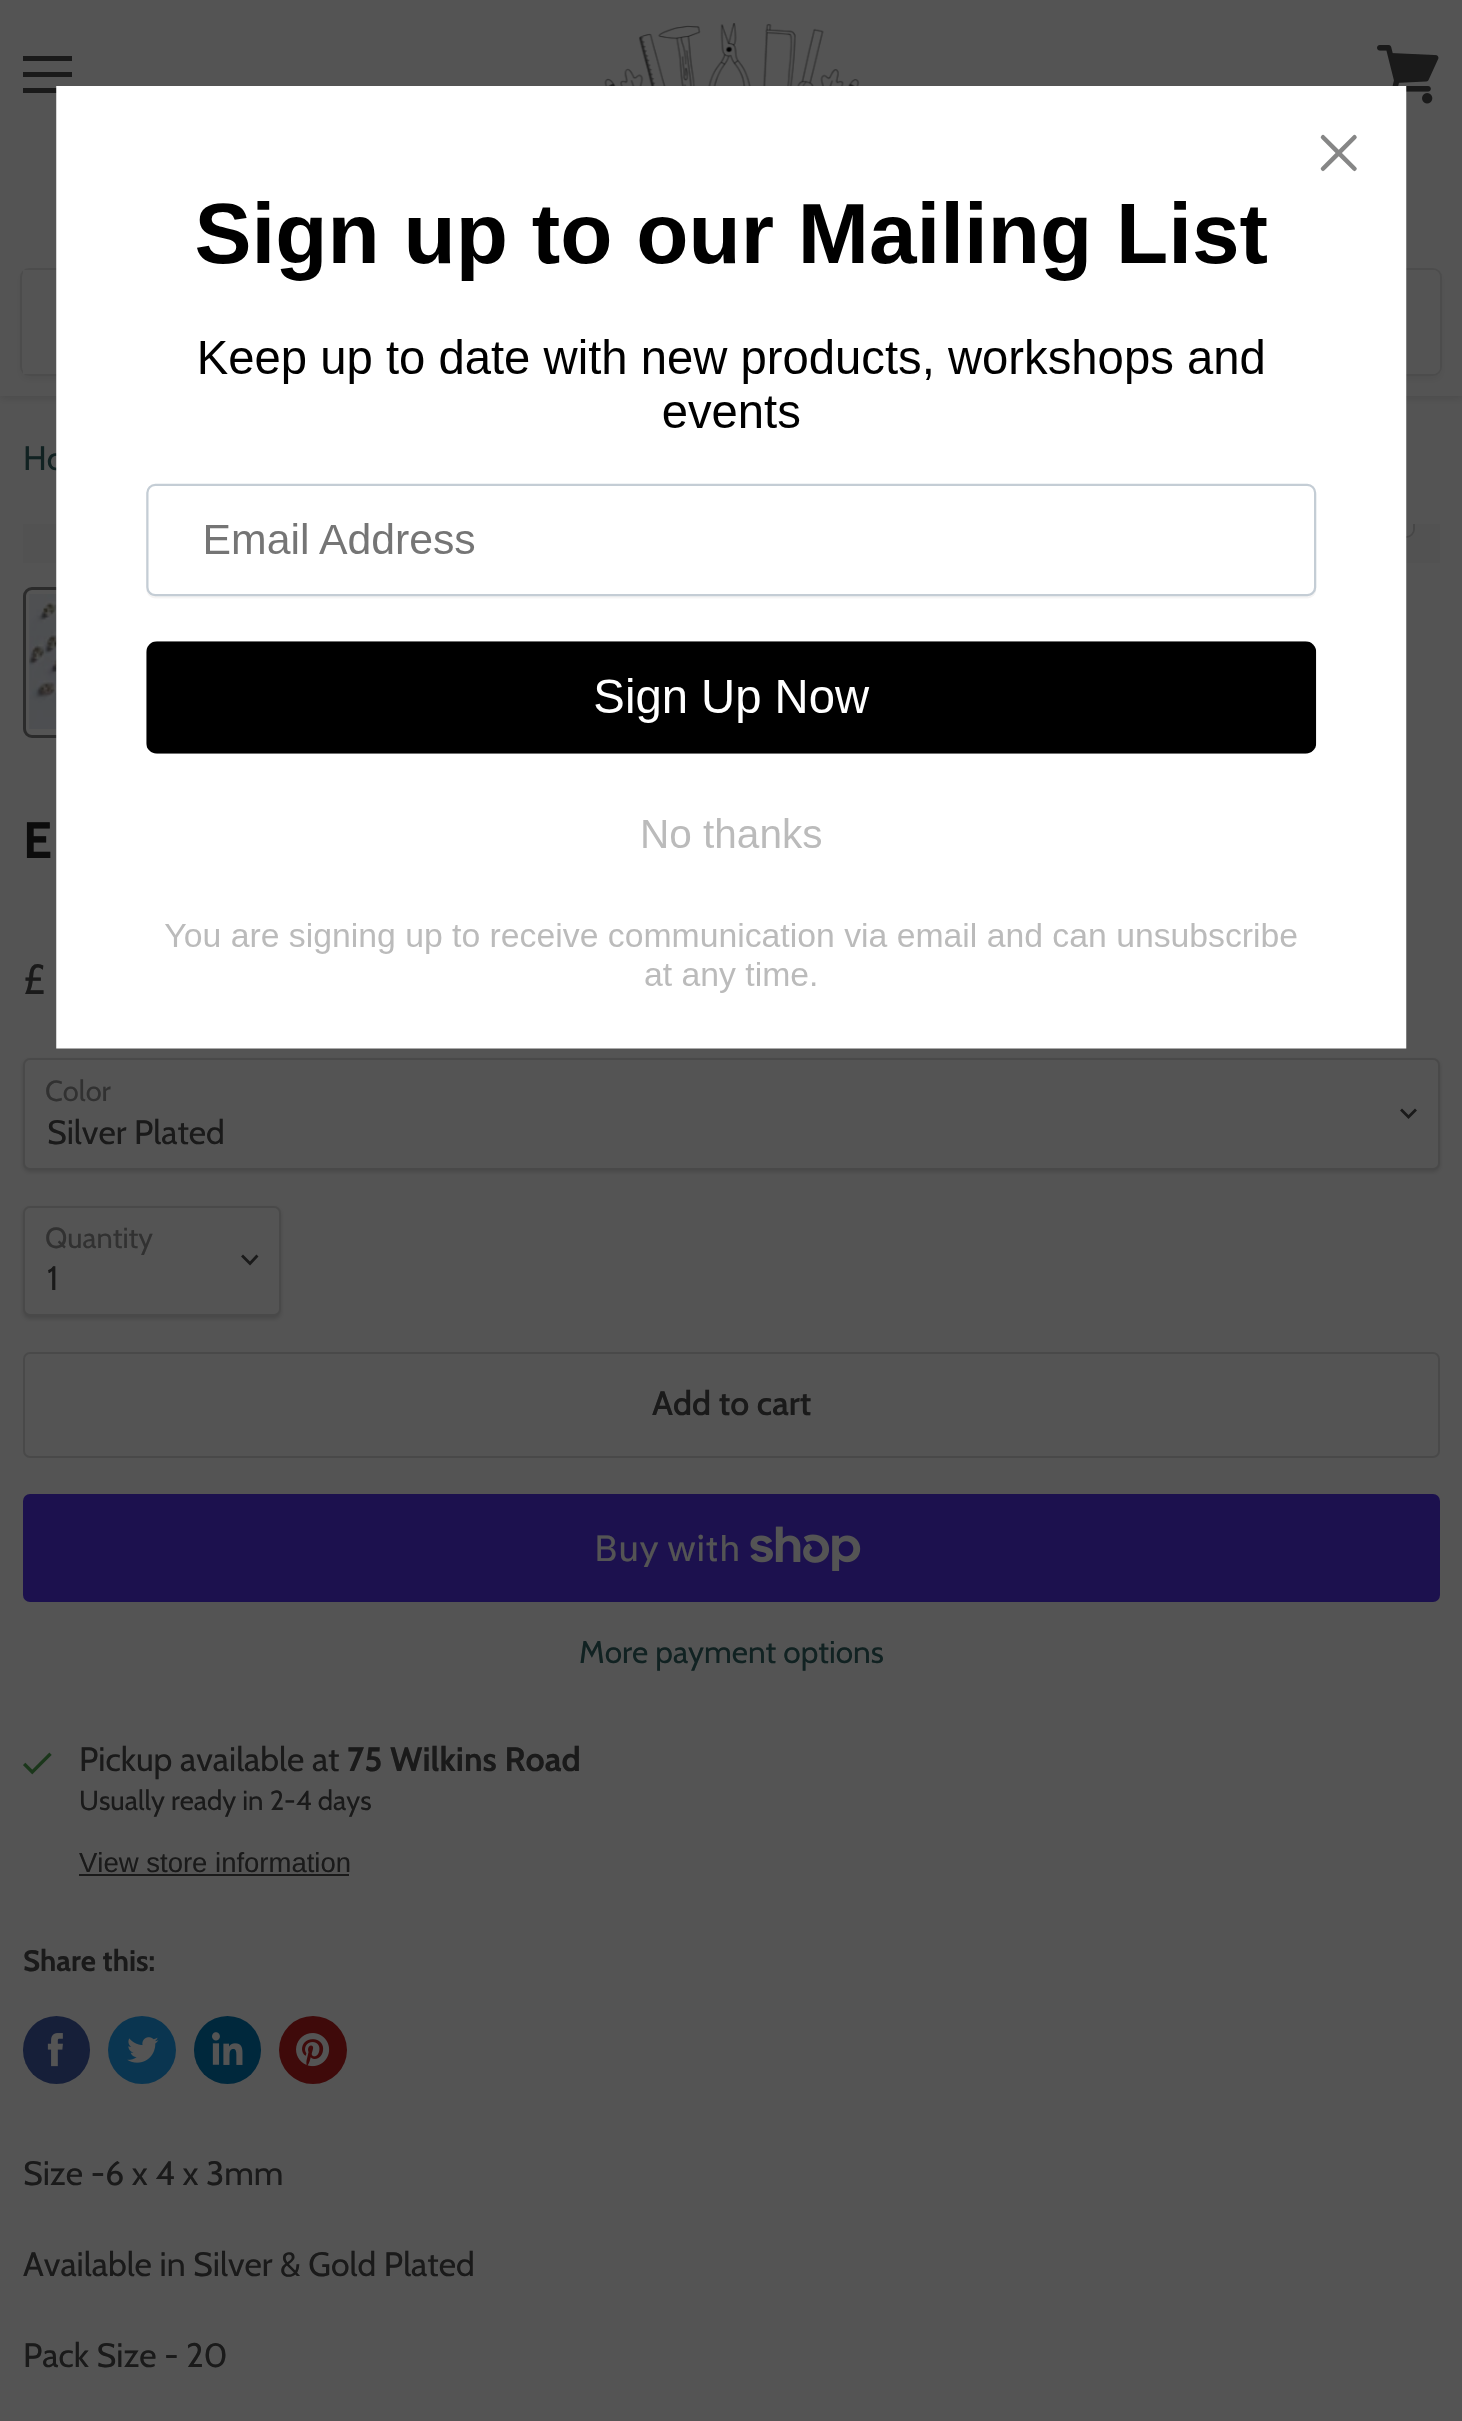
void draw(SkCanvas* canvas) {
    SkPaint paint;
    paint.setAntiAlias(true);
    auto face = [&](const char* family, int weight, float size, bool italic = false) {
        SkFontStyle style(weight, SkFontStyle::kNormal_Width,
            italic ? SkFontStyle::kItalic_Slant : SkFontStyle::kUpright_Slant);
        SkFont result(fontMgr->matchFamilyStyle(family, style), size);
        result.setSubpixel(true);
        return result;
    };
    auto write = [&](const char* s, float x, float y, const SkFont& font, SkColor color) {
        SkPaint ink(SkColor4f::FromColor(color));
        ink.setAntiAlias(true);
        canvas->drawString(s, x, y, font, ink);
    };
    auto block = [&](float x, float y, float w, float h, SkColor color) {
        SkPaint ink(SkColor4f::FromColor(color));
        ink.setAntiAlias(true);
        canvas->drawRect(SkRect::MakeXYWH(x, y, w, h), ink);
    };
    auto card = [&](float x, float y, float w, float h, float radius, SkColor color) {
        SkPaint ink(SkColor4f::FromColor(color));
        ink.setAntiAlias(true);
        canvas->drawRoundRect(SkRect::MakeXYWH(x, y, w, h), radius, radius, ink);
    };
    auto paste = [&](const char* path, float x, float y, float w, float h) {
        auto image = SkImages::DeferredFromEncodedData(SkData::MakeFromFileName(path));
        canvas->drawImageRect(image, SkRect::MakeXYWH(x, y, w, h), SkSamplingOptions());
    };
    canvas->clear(SK_ColorWHITE);
    canvas->save();
    canvas->clipRect(SkRect::MakeXYWH(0, 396, 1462, 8));
    paint.setColor(SkColorSetARGB(64, 128, 128, 128));
    paint.setMaskFilter(SkMaskFilter::MakeBlur(kNormal_SkBlurStyle, 4.5f));
    canvas->drawRect(SkRect::MakeXYWH(0, 2, 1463, 396), paint);
    paint.setMaskFilter(nullptr);
    canvas->restore();
    paste("pic1.png", 604, 23, 256, 63);
    canvas->save();
    canvas->clipPath(SkPathBuilder(SkPathFillType::kEvenOdd).moveTo(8, 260).lineTo(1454, 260).lineTo(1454, 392).lineTo(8, 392).close().moveTo(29, 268).lineTo(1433, 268).cubicTo(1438, 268, 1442, 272, 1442, 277).lineTo(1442, 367).cubicTo(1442, 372, 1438, 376, 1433, 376).lineTo(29, 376).cubicTo(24, 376, 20, 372, 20, 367).lineTo(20, 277).cubicTo(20, 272, 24, 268, 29, 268).close().detach(), true);
    paint.setColor(SkColorSetARGB(28, 128, 128, 128));
    paint.setMaskFilter(SkMaskFilter::MakeBlur(kNormal_SkBlurStyle, 3.5f));
    canvas->drawRoundRect(SkRect::MakeXYWH(20, 272, 1422, 108), 9, 9, paint);
    paint.setMaskFilter(nullptr);
    canvas->restore();
    paint.setStyle(SkPaint::kStroke_Style);
    paint.setStrokeWidth(2);
    paint.setColor(SkColorSetARGB(51, 128, 128, 128));
    canvas->drawRoundRect(SkRect::MakeXYWH(21, 269, 1420, 106), 8, 8, paint);
    block(23, 270, 5, 104, SK_ColorWHITE);
    paint.setStyle(SkPaint::kFill_Style);
    paint.setColor(SK_ColorWHITE);
    canvas->drawPath(SkPathBuilder().moveTo(1320, 271).lineTo(1433, 271).cubicTo(1436.5f, 271, 1439, 273.5f, 1439, 277).lineTo(1439, 367).cubicTo(1439, 370.5f, 1436.5f, 373, 1433, 373).lineTo(1320, 373).close().detach(), paint);
    paint.setStyle(SkPaint::kStroke_Style);
    canvas->drawPath(SkPathBuilder().moveTo(1320, 271).lineTo(1433, 271).cubicTo(1436.5f, 271, 1439, 273.5f, 1439, 277).lineTo(1439, 367).cubicTo(1439, 370.5f, 1436.5f, 373, 1433, 373).lineTo(1320, 373).close().detach(), paint);
    block(23, 56, 49, 5, SkColorSetRGB(77, 77, 77));
    block(23, 72, 49, 5, SkColorSetRGB(77, 77, 77));
    block(23, 88, 34, 5, SkColorSetRGB(77, 77, 77));
    paste("pic2.png", 1377, 45, 62, 59);
    auto kFont1 = face("Cabin", 400, 33.75f);
    write("Ho", 23, 470, kFont1, SkColorSetRGB(51, 102, 102));
    block(23, 524, 1417, 39, SkColorSetRGB(248, 248, 248));
    canvas->save();
    canvas->clipRect(SkRect::MakeXYWH(23, 524, 1417, 39));
    paint.setColor(SkColorSetRGB(211, 211, 211));
    canvas->drawRoundRect(SkRect::MakeXYWH(1140, 474, 274, 63), 8, 8, paint);
    canvas->restore();
    paint.setStyle(SkPaint::kFill_Style);
    paint.setColor(SkColorSetARGB(230, 255, 255, 255));
    canvas->drawPath(SkPathBuilder().moveTo(1141, 524).lineTo(1413, 524).lineTo(1413, 529).cubicTo(1413, 533, 1410, 536, 1406, 536).lineTo(1148, 536).cubicTo(1144, 536, 1141, 533, 1141, 529).close().detach(), paint);
    paint.setStyle(SkPaint::kStroke_Style);
    paint.setStrokeWidth(3);
    paint.setColor(SkColorSetRGB(129, 129, 129));
    canvas->drawRoundRect(SkRect::MakeXYWH(24.5f, 588.5f, 147, 148), 7.5f, 7.5f, paint);
    paste("pic4.png", 29, 594, 28, 135);
    auto kFont2 = face("Cabin", 700, 51);
    write("E", 23, 858, kFont2, SkColorSetRGB(34, 34, 34));
    auto kFont3 = face("Cabin", 400, 42);
    write("£", 23, 994, kFont3, SkColorSetRGB(77, 77, 77));
    paint.setStyle(SkPaint::kFill_Style);
    paint.setColor(SkColorSetARGB(38, 0, 0, 0));
    paint.setMaskFilter(SkMaskFilter::MakeBlur(kNormal_SkBlurStyle, 2));
    canvas->drawRoundRect(SkRect::MakeXYWH(23, 1060, 1417, 112), 7, 7, paint);
    paint.setMaskFilter(nullptr);
    paint.setColor(SK_ColorWHITE);
    canvas->drawRoundRect(SkRect::MakeXYWH(24, 1059, 1415, 110), 6, 6, paint);
    paint.setStyle(SkPaint::kStroke_Style);
    paint.setStrokeWidth(2);
    paint.setColor(SkColorSetRGB(221, 221, 221));
    canvas->drawRoundRect(SkRect::MakeXYWH(24, 1059, 1415, 110), 6, 6, paint);
    auto kFont4 = face("Cabin", 400, 29);
    write("Color", 45, 1101, kFont4, SkColorSetRGB(148, 148, 148));
    paint.setStrokeWidth(2.8f);
    paint.setStrokeCap(SkPaint::kSquare_Cap);
    paint.setColor(SkColorSetRGB(77, 77, 77));
    canvas->drawPath(SkPathBuilder().moveTo(1408.5f, 1117).lineTo(1415, 1110.5f).moveTo(1408.5f, 1117).lineTo(1402, 1110.5f).detach(), paint);
    write("Silver Plated", 47, 1144, kFont1, SkColorSetRGB(77, 77, 77));
    paint.setStyle(SkPaint::kFill_Style);
    paint.setColor(SkColorSetARGB(38, 0, 0, 0));
    paint.setMaskFilter(SkMaskFilter::MakeBlur(kNormal_SkBlurStyle, 2));
    canvas->drawRoundRect(SkRect::MakeXYWH(23, 1208, 258, 111), 7, 7, paint);
    paint.setMaskFilter(nullptr);
    paint.setColor(SK_ColorWHITE);
    canvas->drawRoundRect(SkRect::MakeXYWH(24, 1207, 256, 108), 6, 6, paint);
    paint.setStyle(SkPaint::kStroke_Style);
    paint.setStrokeWidth(2);
    paint.setStrokeCap(SkPaint::kButt_Cap);
    paint.setColor(SkColorSetRGB(221, 221, 221));
    canvas->drawRoundRect(SkRect::MakeXYWH(24, 1207, 256, 108), 6, 6, paint);
    write("Quantity", 45, 1248, kFont4, SkColorSetRGB(148, 148, 148));
    paint.setStrokeWidth(2.8f);
    paint.setStrokeCap(SkPaint::kSquare_Cap);
    paint.setColor(SkColorSetRGB(77, 77, 77));
    canvas->drawPath(SkPathBuilder().moveTo(250, 1263.5f).lineTo(256.5f, 1256.5f).moveTo(250, 1263.5f).lineTo(243, 1256.5f).detach(), paint);
    write("1", 47, 1290, kFont1, SkColorSetRGB(77, 77, 77));
    paint.setStrokeWidth(2);
    paint.setStrokeCap(SkPaint::kButt_Cap);
    paint.setColor(SkColorSetRGB(221, 221, 221));
    canvas->drawRoundRect(SkRect::MakeXYWH(24, 1353, 1415, 104), 6, 6, paint);
    auto kFont5 = face("Cabin", 600, 33.75f);
    write("Add to cart", 652, 1415, kFont5, SkColorSetRGB(77, 77, 77));
    card(23, 1494, 1417, 108, 7, SkColorSetRGB(84, 51, 235));
    auto kFont6 = face("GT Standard", 400, 36);
    write("Buy with", 594, 1561, kFont6, SK_ColorWHITE);
    paste("pic5.png", 750, 1526, 111, 45);
    auto kFont7 = face("Cabin", 400, 31.6f);
    write("More payment options", 579, 1663, kFont7, SkColorSetRGB(51, 102, 102));
    paste("pic6.png", 23, 1752, 29, 23);
    write("Pickup available at", 79, 1771, kFont1, SkColorSetRGB(77, 77, 77));
    auto kFont8 = face("Cabin", 700, 33.75f);
    write("75 Wilkins Road", 347, 1771, kFont8, SkColorSetRGB(77, 77, 77));
    auto kFont9 = face("Cabin", 400, 27.5f);
    write("Usually ready in 2-4 days", 79, 1810, kFont9, SkColorSetRGB(77, 77, 77));
    auto kFont10 = face("Liberation Sans", 400, 27.5f);
    write("View store information", 79, 1872, kFont10, SkColorSetRGB(77, 77, 77));
    block(79, 1874, 270, 2, SkColorSetRGB(77, 77, 77));
    auto kFont11 = face("Cabin", 700, 29.5f);
    write("Share this:", 23, 1971, kFont11, SkColorSetRGB(77, 77, 77));
    card(23, 2016, 67, 68, 33.5f, SkColorSetRGB(66, 93, 171));
    paste("pic7.png", 47, 2033, 16, 34);
    paint.setStyle(SkPaint::kFill_Style);
    paint.setColor(SkColorSetRGB(29, 161, 242));
    canvas->drawCircle(142, 2050, 34, paint);
    paste("pic8.png", 127, 2037, 32, 26);
    card(194, 2016, 67, 68, 33.5f, SkColorSetRGB(0, 119, 181));
    paste("pic9.png", 212, 2032, 31, 33);
    paint.setColor(SkColorSetRGB(189, 28, 28));
    canvas->drawCircle(313, 2050, 34, paint);
    paste("pic10.png", 296, 2033, 34, 34);
    write("Size -6 x 4 x 3mm", 23, 2185, kFont1, SkColorSetRGB(77, 77, 77));
    write("Available in Silver & Gold Plated", 23, 2276, kFont1, SkColorSetRGB(77, 77, 77));
    write("Pack Size - 20", 23, 2367, kFont1, SkColorSetRGB(77, 77, 77));
    paste("pic3.png", 0, 0, 1462, 2421);
}
